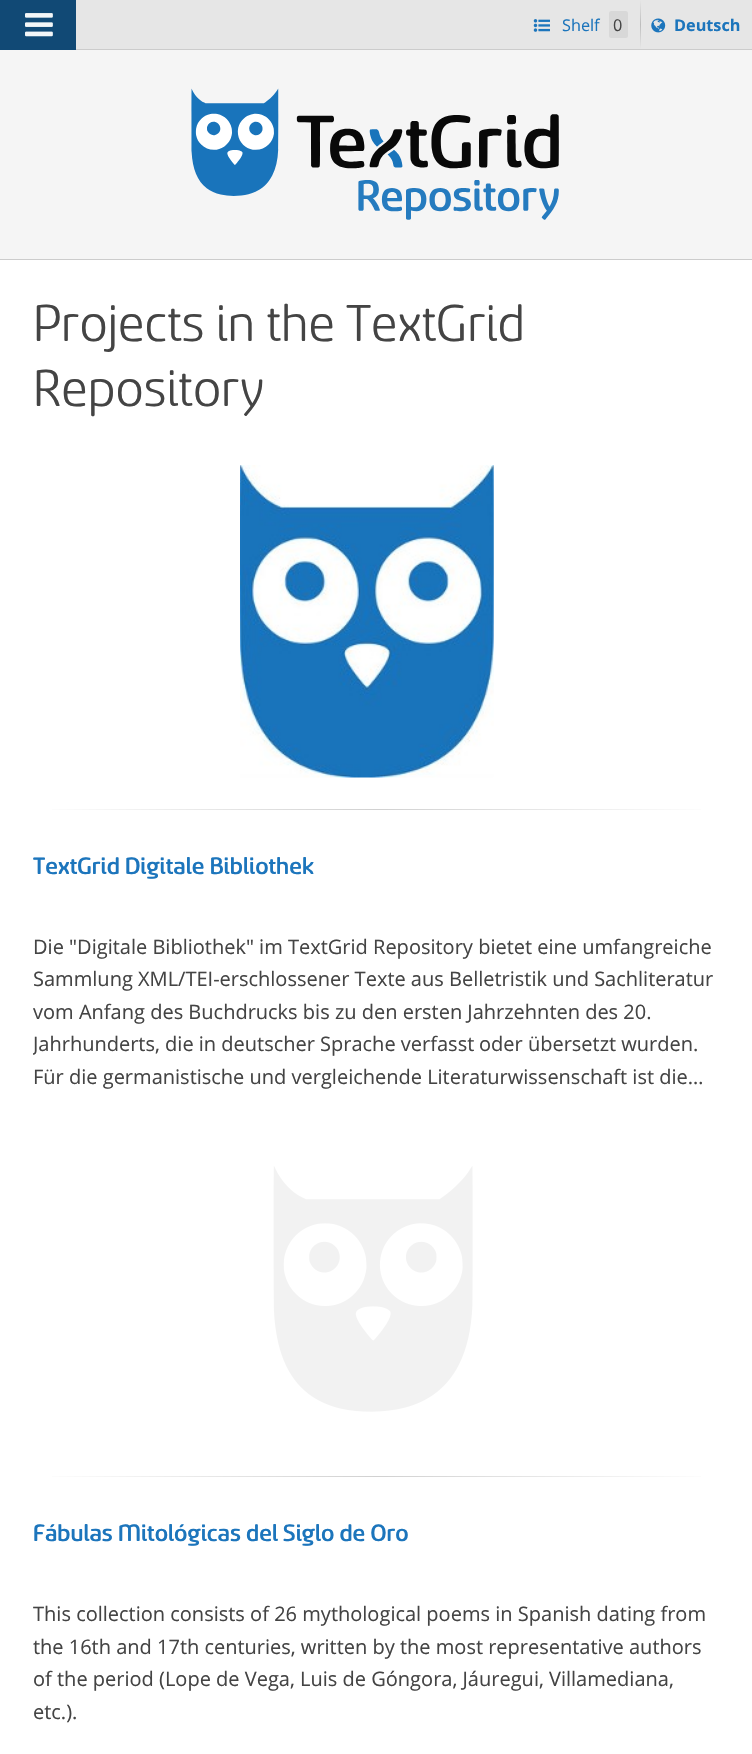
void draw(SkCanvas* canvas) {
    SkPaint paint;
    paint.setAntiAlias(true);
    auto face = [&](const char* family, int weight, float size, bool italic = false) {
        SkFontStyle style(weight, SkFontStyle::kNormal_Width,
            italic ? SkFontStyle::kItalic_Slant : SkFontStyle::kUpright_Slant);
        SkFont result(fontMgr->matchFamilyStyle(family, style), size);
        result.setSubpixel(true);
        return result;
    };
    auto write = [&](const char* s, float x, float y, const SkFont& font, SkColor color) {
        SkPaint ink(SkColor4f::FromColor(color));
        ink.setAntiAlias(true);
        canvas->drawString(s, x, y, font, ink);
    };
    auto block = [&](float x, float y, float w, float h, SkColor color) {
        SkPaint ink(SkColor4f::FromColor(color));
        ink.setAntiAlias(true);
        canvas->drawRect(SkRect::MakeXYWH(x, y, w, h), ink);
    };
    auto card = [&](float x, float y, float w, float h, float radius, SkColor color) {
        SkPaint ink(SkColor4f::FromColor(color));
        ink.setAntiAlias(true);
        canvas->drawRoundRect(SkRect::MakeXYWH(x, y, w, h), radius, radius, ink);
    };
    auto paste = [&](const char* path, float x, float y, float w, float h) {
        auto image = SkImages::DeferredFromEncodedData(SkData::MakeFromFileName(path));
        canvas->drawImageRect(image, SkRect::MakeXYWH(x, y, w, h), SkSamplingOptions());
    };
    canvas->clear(SK_ColorWHITE);
    block(0, 50, 752, 209, SkColorSetRGB(245, 245, 245));
    block(0, 259, 752, 1, SkColorSetRGB(204, 204, 204));
    block(76, 0, 676, 49, SkColorSetRGB(230, 230, 230));
    block(76, 49, 676, 1, SkColorSetRGB(204, 204, 204));
    block(0, 0, 76, 50, SkColorSetRGB(17, 73, 117));
    paste("pic1.png", 25, 13, 28, 24);
    paste("pic2.png", 533, 19, 17, 13);
    auto kFont1 = face("Open Sans", 400, 16.25f);
    write("Shelf", 562, 31, kFont1, SkColorSetRGB(28, 117, 188));
    card(609, 11, 19, 27, 2.5f, SkColorSetRGB(216, 216, 216));
    write("0", 613, 31, kFont1, SkColorSetRGB(68, 68, 68));
    {
        const SkColor colors[] = {SkColorSetRGB(230, 230, 230), SkColorSetRGB(189, 189, 189), SkColorSetRGB(230, 230, 230)};
        const float stops[] = {0, 0.5f, 1};
        const SkPoint ends[] = {{641, 0}, {641, 49}};
        paint.setShader(SkGradientShader::MakeLinear(ends, colors, stops, 3, SkTileMode::kClamp));
        paint.setAlpha(255);
    }
    canvas->drawRect(SkRect::MakeXYWH(640, 0, 1, 49), paint);
    paste("pic3.png", 651, 18, 15, 15);
    auto kFont2 = face("Open Sans", 700, 16.25f);
    write("Deutsch", 674, 31, kFont2, SkColorSetRGB(28, 117, 188));
    paste("pic4.png", 191, 88, 368, 132);
    auto kFont3 = face("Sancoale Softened", 400, 57.5f);
    write("Projects in the TextGrid", 33, 341, kFont3, SkColorSetRGB(68, 68, 68));
    write("Repository", 33, 406, kFont3, SkColorSetRGB(68, 68, 68));
    paste("pic5.png", 240, 465, 254, 313);
    {
        const SkColor colors[] = {SK_ColorWHITE, SkColorSetRGB(209, 209, 209), SK_ColorWHITE};
        const float stops[] = {0, 0.5f, 1};
        const SkPoint ends[] = {{33, 809}, {720, 809}};
        paint.setShader(SkGradientShader::MakeLinear(ends, colors, stops, 3, SkTileMode::kClamp));
        paint.setAlpha(255);
    }
    canvas->drawRect(SkRect::MakeXYWH(52, 809, 649, 1), paint);
    auto kFont4 = face("Sancoale Softened", 500, 26.25f);
    write("TextGrid Digitale Bibliothek", 33, 874, kFont4, SkColorSetRGB(28, 117, 188));
    auto kFont5 = face("Open Sans", 400, 20);
    write("Die \"Digitale Bibliothek\" im TextGrid Repository bietet eine umfangreiche", 33, 954, kFont5, SkColorSetRGB(68, 68, 68));
    write("Sammlung XML/TEI-erschlossener Texte aus Belletristik und Sachliteratur", 33, 986, kFont5, SkColorSetRGB(68, 68, 68));
    write("vom Anfang des Buchdrucks bis zu den ersten Jahrzehnten des 20.", 33, 1019, kFont5, SkColorSetRGB(68, 68, 68));
    canvas->save();
    canvas->clipRect(SkRect::MakeXYWH(33, 930, 687, 160));
    write("Jahrhunderts, die in deutscher Sprache verfasst", 33, 1051, kFont5, SkColorSetRGB(68, 68, 68));
    canvas->restore();
    write("oder übersetzt wurden.", 479, 1051, kFont5, SkColorSetRGB(68, 68, 68));
    write("Für die germanistische und vergleichende Literaturwissenschaft ist die…", 33, 1084, kFont5, SkColorSetRGB(68, 68, 68));
    paste("pic6.png", 273, 1166, 200, 246);
    {
        const SkColor colors[] = {SK_ColorWHITE, SkColorSetRGB(209, 209, 209), SK_ColorWHITE};
        const float stops[] = {0, 0.5f, 1};
        const SkPoint ends[] = {{33, 1477}, {720, 1477}};
        paint.setShader(SkGradientShader::MakeLinear(ends, colors, stops, 3, SkTileMode::kClamp));
        paint.setAlpha(255);
    }
    canvas->drawRect(SkRect::MakeXYWH(52, 1476, 649, 1), paint);
    write("Fábulas Mitológicas del Siglo de Oro", 33, 1541, kFont4, SkColorSetRGB(28, 117, 188));
    canvas->save();
    canvas->clipRect(SkRect::MakeXYWH(33, 1598, 687, 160));
    write("This collection consists of 26 mythological poems in Spanish dating from", 33, 1621, kFont5, SkColorSetRGB(68, 68, 68));
    canvas->restore();
    write("the 16th and 17th centuries, written by the most representative authors", 33, 1654, kFont5, SkColorSetRGB(68, 68, 68));
    write("of the period (Lope de Vega, Luis de Góngora, Jáuregui, Villamediana,", 33, 1686, kFont5, SkColorSetRGB(68, 68, 68));
    write("etc.).", 33, 1719, kFont5, SkColorSetRGB(68, 68, 68));
}
